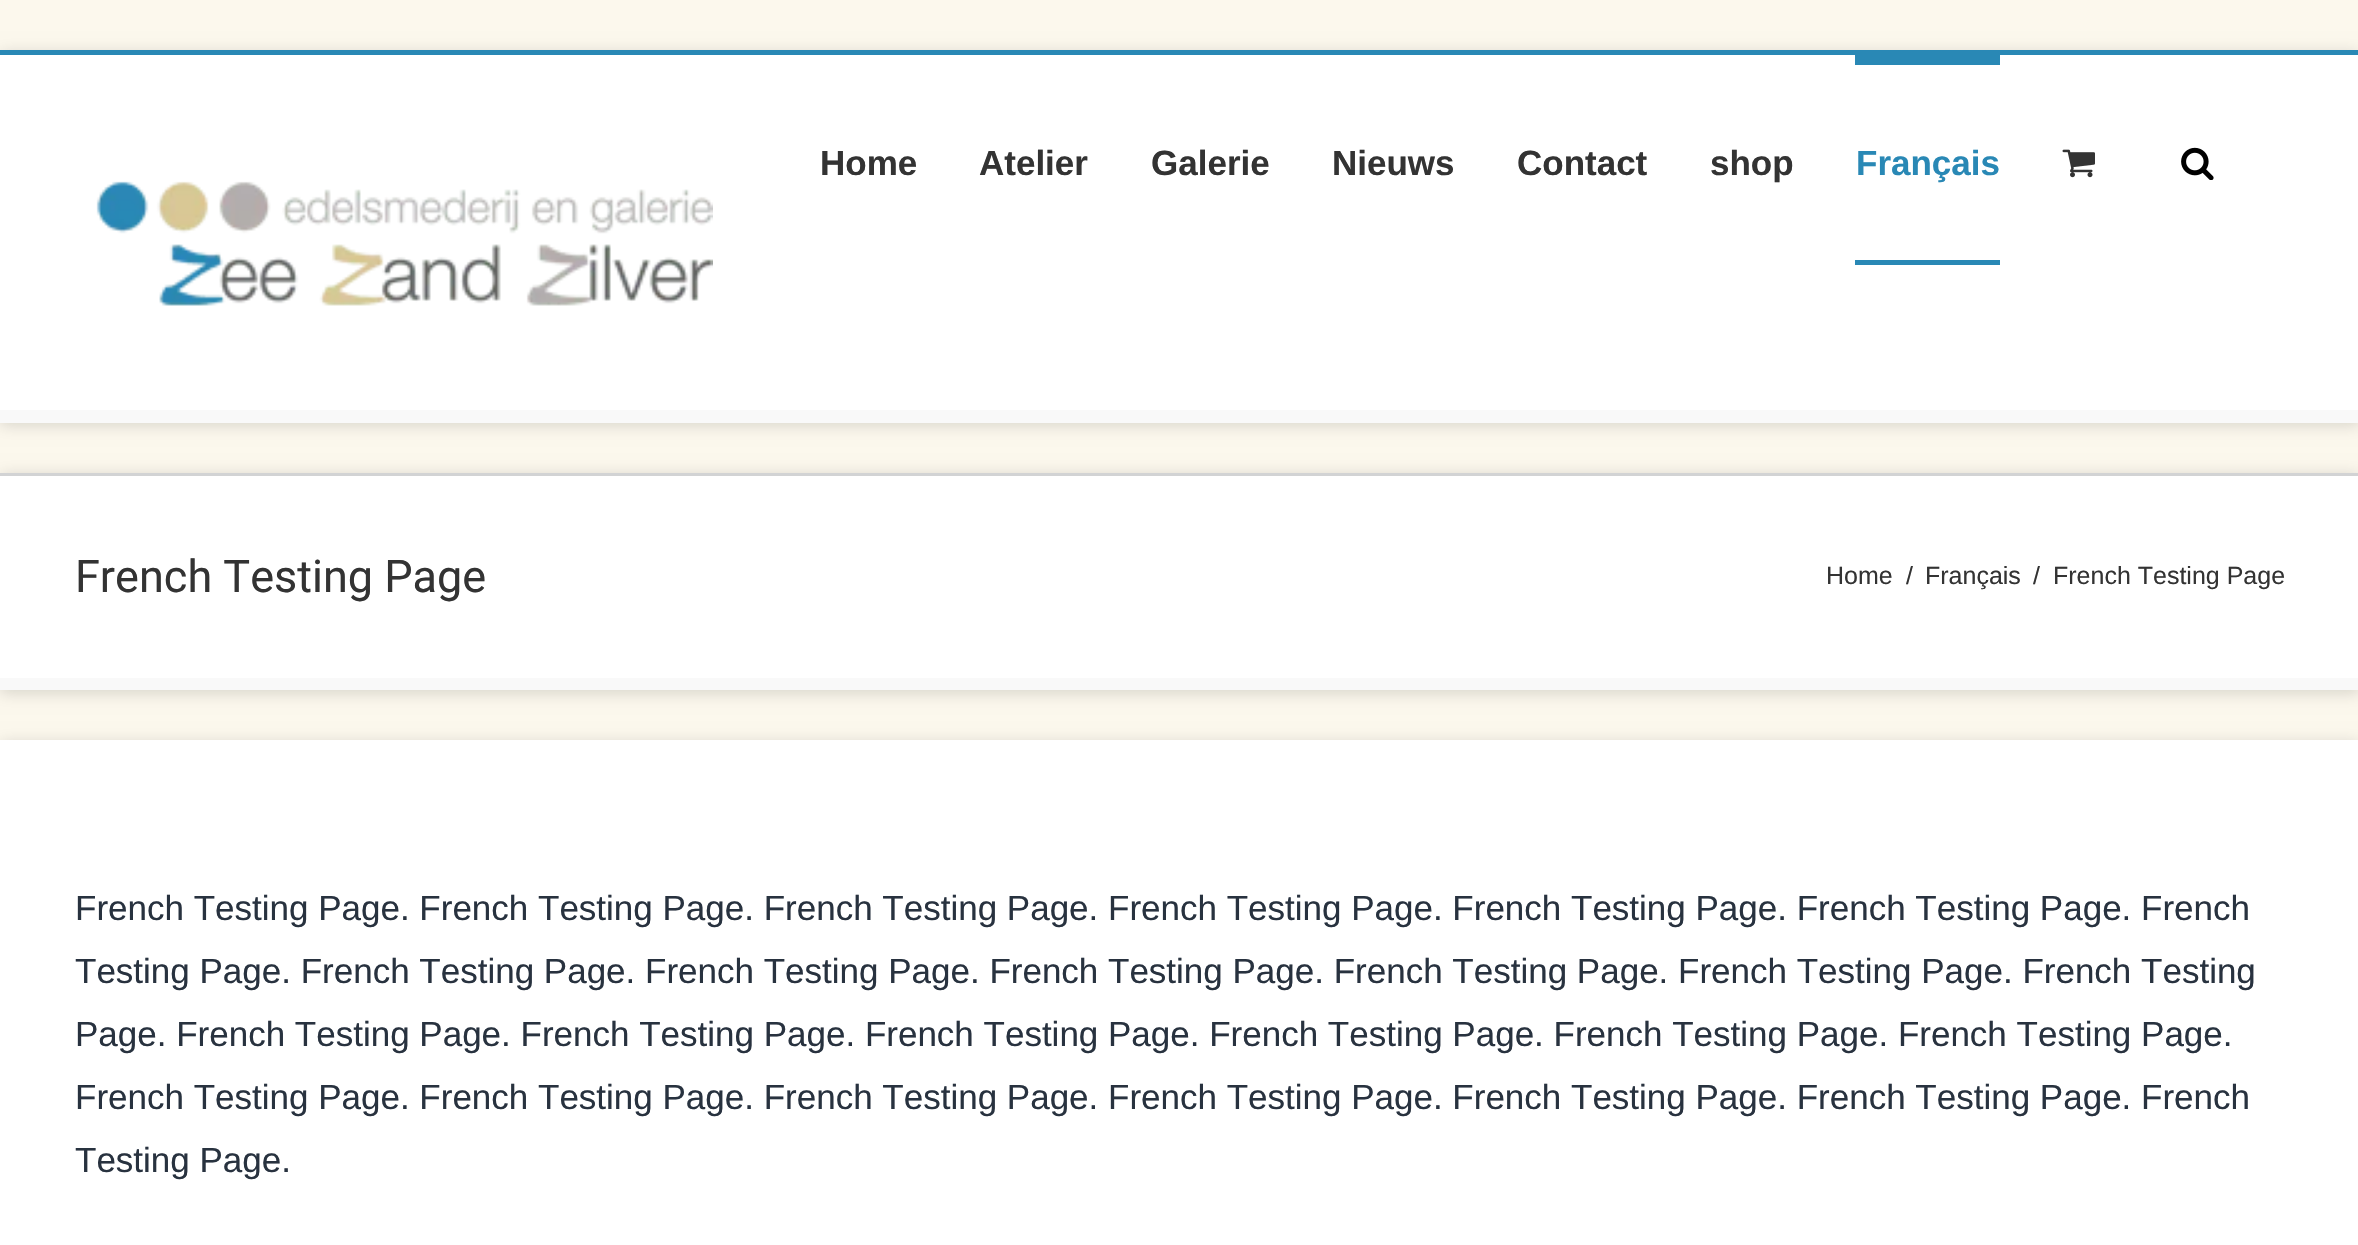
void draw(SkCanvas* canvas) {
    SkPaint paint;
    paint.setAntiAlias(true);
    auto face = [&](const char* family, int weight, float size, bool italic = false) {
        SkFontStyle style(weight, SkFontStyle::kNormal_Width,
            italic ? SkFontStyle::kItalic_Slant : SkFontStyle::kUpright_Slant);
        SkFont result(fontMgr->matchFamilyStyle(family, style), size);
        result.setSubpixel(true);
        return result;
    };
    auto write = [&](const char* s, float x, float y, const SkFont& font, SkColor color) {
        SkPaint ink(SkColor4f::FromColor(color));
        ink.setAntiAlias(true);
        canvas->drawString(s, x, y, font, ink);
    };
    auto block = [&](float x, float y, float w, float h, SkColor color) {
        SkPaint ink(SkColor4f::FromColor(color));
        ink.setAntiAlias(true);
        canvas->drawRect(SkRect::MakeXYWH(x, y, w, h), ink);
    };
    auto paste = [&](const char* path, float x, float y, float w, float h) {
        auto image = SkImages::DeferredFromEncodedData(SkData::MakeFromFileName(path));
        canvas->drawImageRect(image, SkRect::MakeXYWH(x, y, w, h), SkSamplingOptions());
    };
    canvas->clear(SkColorSetRGB(252, 248, 237));
    paint.setColor(SkColorSetARGB(38, 0, 0, 0));
    paint.setMaskFilter(SkMaskFilter::MakeBlur(kNormal_SkBlurStyle, 7.5f));
    canvas->drawRect(SkRect::MakeXYWH(0, 53, 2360, 372), paint);
    paint.setMaskFilter(nullptr);
    block(0, 55, 2358, 355, SK_ColorWHITE);
    block(0, 50, 2358, 5, SkColorSetRGB(41, 136, 181));
    block(0, 410, 2358, 13, SkColorSetRGB(249, 249, 249));
    auto kFont1 = face("Liberation Sans", 700, 35);
    write("Home", 820, 175, kFont1, SkColorSetRGB(51, 51, 51));
    write("Atelier", 979, 175, kFont1, SkColorSetRGB(51, 51, 51));
    write("Galerie", 1151, 175, kFont1, SkColorSetRGB(51, 51, 51));
    write("Nieuws", 1332, 175, kFont1, SkColorSetRGB(51, 51, 51));
    write("Contact", 1517, 175, kFont1, SkColorSetRGB(51, 51, 51));
    write("shop", 1710, 175, kFont1, SkColorSetRGB(51, 51, 51));
    block(1855, 55, 145, 10, SkColorSetRGB(41, 136, 181));
    block(1855, 260, 145, 5, SkColorSetRGB(41, 136, 181));
    write("Français", 1856, 175, kFont1, SkColorSetRGB(41, 136, 181));
    paste("pic1.png", 2062, 149, 33, 29);
    paste("pic2.png", 2181, 147, 33, 33);
    paste("pic3.png", 96, 181, 617, 125);
    paint.setMaskFilter(SkMaskFilter::MakeBlur(kNormal_SkBlurStyle, 7.5f));
    canvas->drawRect(SkRect::MakeXYWH(0, 475, 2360, 218), paint);
    paint.setMaskFilter(nullptr);
    block(0, 476, 2358, 202, SK_ColorWHITE);
    block(0, 473, 2358, 3, SkColorSetRGB(210, 211, 212));
    block(0, 678, 2358, 12, SkColorSetRGB(249, 249, 249));
    auto kFont2 = face("Roboto", 400, 45);
    write("French Testing Page", 75, 592, kFont2, SkColorSetRGB(51, 51, 51));
    auto kFont3 = face("Liberation Sans", 400, 25);
    write("Home", 1826, 584, kFont3, SkColorSetRGB(51, 51, 51));
    write("/", 1906, 584, kFont3, SkColorSetRGB(51, 51, 51));
    write("Français", 1925, 584, kFont3, SkColorSetRGB(51, 51, 51));
    write("/", 2033, 584, kFont3, SkColorSetRGB(51, 51, 51));
    write("French Testing Page", 2053, 584, kFont3, SkColorSetRGB(51, 51, 51));
    paint.setMaskFilter(SkMaskFilter::MakeBlur(kNormal_SkBlurStyle, 7.5f));
    canvas->drawRect(SkRect::MakeXYWH(0, 743, 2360, 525), paint);
    paint.setMaskFilter(nullptr);
    block(0, 740, 2358, 505, SK_ColorWHITE);
    auto kFont4 = face("Liberation Sans", 400, 35);
    write("French Testing Page. French Testing Page. French Testing Page. French Testing Page. French Testing Page. French Testing Page. French", 75, 920, kFont4, SkColorSetRGB(40, 50, 63));
    write("Testing Page. French Testing Page. French Testing Page. French Testing Page. French Testing Page. French Testing Page. French Testing", 75, 983, kFont4, SkColorSetRGB(40, 50, 63));
    write("Page. French Testing Page. French Testing Page. French Testing Page. French Testing Page. French Testing Page. French Testing Page.", 75, 1046, kFont4, SkColorSetRGB(40, 50, 63));
    write("French Testing Page. French Testing Page. French Testing Page. French Testing Page. French Testing Page. French Testing Page. French", 75, 1109, kFont4, SkColorSetRGB(40, 50, 63));
    write("Testing Page.", 75, 1172, kFont4, SkColorSetRGB(40, 50, 63));
}
